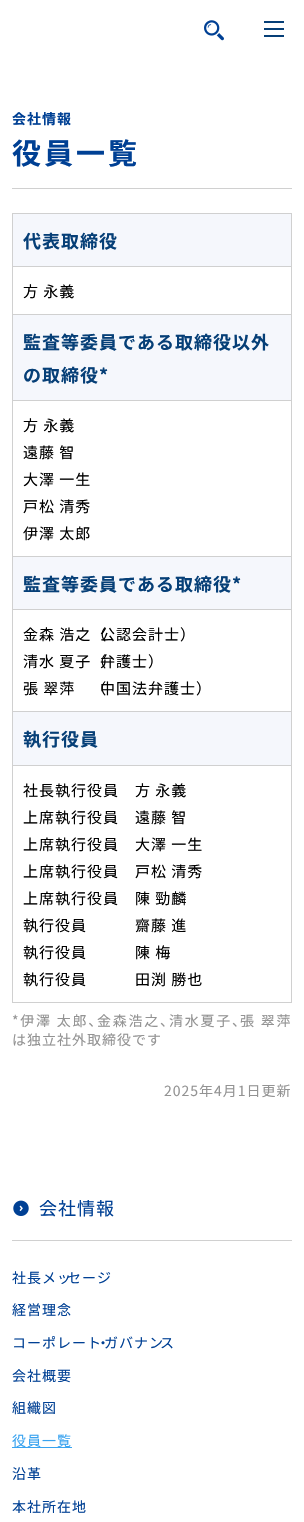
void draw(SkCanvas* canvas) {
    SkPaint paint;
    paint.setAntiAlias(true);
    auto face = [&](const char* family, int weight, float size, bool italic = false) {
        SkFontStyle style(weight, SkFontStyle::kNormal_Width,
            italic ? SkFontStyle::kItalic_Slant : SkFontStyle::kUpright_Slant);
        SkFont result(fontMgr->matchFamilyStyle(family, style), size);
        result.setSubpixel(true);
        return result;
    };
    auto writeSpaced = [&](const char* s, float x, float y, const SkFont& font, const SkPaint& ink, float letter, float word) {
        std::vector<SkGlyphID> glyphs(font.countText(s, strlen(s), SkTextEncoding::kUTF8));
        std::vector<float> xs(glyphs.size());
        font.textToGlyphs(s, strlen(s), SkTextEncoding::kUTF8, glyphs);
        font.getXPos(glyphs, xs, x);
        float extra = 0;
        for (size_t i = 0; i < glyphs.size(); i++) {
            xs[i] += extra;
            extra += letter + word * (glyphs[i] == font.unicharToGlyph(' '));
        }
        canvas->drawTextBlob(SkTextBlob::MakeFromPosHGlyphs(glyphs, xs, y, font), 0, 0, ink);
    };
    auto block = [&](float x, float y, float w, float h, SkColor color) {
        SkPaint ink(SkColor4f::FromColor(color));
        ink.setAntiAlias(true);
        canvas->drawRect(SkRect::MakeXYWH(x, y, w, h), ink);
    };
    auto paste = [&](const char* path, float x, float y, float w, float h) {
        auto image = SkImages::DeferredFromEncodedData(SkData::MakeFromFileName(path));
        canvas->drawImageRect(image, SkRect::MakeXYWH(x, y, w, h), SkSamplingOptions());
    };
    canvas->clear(SK_ColorWHITE);
    paste("pic1.png", 204, 20, 20, 21);
    block(264, 21, 20, 2, SkColorSetRGB(6, 63, 119));
    block(264, 28, 20, 2, SkColorSetRGB(6, 63, 119));
    block(264, 35, 20, 2, SkColorSetRGB(6, 63, 119));
    auto kFont1 = face("Noto Sans JP", 700, 14);
    paint.setColor(SkColorSetRGB(0, 64, 148));
    writeSpaced("会社情報", 12, 124, kFont1, paint, 1, 0);
    block(12, 188, 280, 1, SkColorSetRGB(208, 208, 208));
    auto kFont2 = face("Noto Sans JP", 700, 29);
    writeSpaced("役員一覧", 12, 164, kFont2, paint, 3, 0);
    block(12, 213, 280, 1, SkColorSetRGB(208, 208, 208));
    block(12, 213, 1, 790, SkColorSetRGB(208, 208, 208));
    block(13, 214, 278, 52, SkColorSetRGB(245, 247, 252));
    block(291, 214, 1, 789, SkColorSetRGB(208, 208, 208));
    block(13, 266, 279, 1, SkColorSetRGB(208, 208, 208));
    auto kFont3 = face("Noto Sans JP", 700, 18);
    paint.setColor(SkColorSetRGB(6, 63, 119));
    writeSpaced("代表取締役", 23, 248, kFont3, paint, 1, 0);
    block(13, 314, 279, 1, SkColorSetRGB(208, 208, 208));
    auto kFont4 = face("Noto Sans JP", 400, 15);
    paint.setColor(SK_ColorBLACK);
    writeSpaced("方 永義", 23, 297, kFont4, paint, 1, 0);
    block(13, 315, 278, 85, SkColorSetRGB(245, 247, 252));
    block(13, 400, 279, 1, SkColorSetRGB(208, 208, 208));
    paint.setColor(SkColorSetRGB(6, 63, 119));
    writeSpaced("監査等委員である取締役以外", 23, 349, kFont3, paint, 1, 0);
    writeSpaced("の取締役*", 23, 382, kFont3, paint, 1, 0);
    block(13, 556, 279, 1, SkColorSetRGB(208, 208, 208));
    paint.setColor(SK_ColorBLACK);
    writeSpaced("方 永義", 23, 431, kFont4, paint, 1, 0);
    writeSpaced("遠藤 智", 23, 458, kFont4, paint, 1, 0);
    writeSpaced("大澤 一生", 23, 485, kFont4, paint, 1, 0);
    writeSpaced("戸松 清秀", 23, 512, kFont4, paint, 1, 0);
    writeSpaced("伊澤 太郎", 23, 539, kFont4, paint, 1, 0);
    block(13, 557, 278, 52, SkColorSetRGB(245, 247, 252));
    block(13, 609, 279, 1, SkColorSetRGB(208, 208, 208));
    paint.setColor(SkColorSetRGB(6, 63, 119));
    writeSpaced("監査等委員である取締役*", 23, 591, kFont3, paint, 1, 0);
    block(13, 711, 279, 1, SkColorSetRGB(208, 208, 208));
    paint.setColor(SK_ColorBLACK);
    writeSpaced("金森 浩之（", 23, 640, kFont4, paint, 1, 0);
    writeSpaced("公認会計士）", 100, 640, kFont4, paint, 1, 0);
    writeSpaced("清水 夏子（", 23, 667, kFont4, paint, 1, 0);
    writeSpaced("弁護士）", 100, 667, kFont4, paint, 1, 0);
    writeSpaced("張 翠萍　（", 23, 694, kFont4, paint, 1, 0);
    writeSpaced("中国法弁護士）", 100, 694, kFont4, paint, 1, 0);
    block(13, 712, 278, 53, SkColorSetRGB(245, 247, 252));
    block(13, 765, 279, 1, SkColorSetRGB(208, 208, 208));
    paint.setColor(SkColorSetRGB(6, 63, 119));
    writeSpaced("執行役員", 23, 746, kFont3, paint, 1, 0);
    block(13, 1002, 279, 1, SkColorSetRGB(208, 208, 208));
    paint.setColor(SK_ColorBLACK);
    writeSpaced("社長執行役員　方 永義", 23, 796, kFont4, paint, 1, 0);
    writeSpaced("上席執行役員　遠藤 智", 23, 823, kFont4, paint, 1, 0);
    writeSpaced("上席執行役員　大澤 一生", 23, 850, kFont4, paint, 1, 0);
    writeSpaced("上席執行役員　戸松 清秀", 23, 877, kFont4, paint, 1, 0);
    writeSpaced("上席執行役員　陳 勁麟", 23, 904, kFont4, paint, 1, 0);
    writeSpaced("執行役員　　　齋藤 進", 23, 931, kFont4, paint, 1, 0);
    writeSpaced("執行役員　　　陳 梅", 23, 958, kFont4, paint, 1, 0);
    writeSpaced("執行役員　　　田渕 勝也", 23, 985, kFont4, paint, 1, 0);
    auto kFont5 = face("Noto Sans JP", 400, 14);
    paint.setColor(SkColorSetRGB(147, 147, 147));
    writeSpaced("*伊澤 太郎、", 12, 1026, kFont5, paint, 1.75f, 0);
    writeSpaced("金森浩之、", 97, 1026, kFont5, paint, 1.75f, 0);
    writeSpaced("清水夏子、", 169, 1026, kFont5, paint, 1.75f, 0);
    writeSpaced("張 翠萍", 240, 1026, kFont5, paint, 1.75f, 0);
    writeSpaced("は独立社外取締役です", 12, 1045, kFont5, paint, 1, 0);
    writeSpaced("2025年4月1日更新", 164, 1096, kFont5, paint, 1, 0);
    block(12, 1240, 280, 1, SkColorSetRGB(208, 208, 208));
    paste("pic2.png", 13, 1200, 16, 16);
    auto kFont6 = face("Noto Sans JP", 400, 18);
    paint.setColor(SkColorSetRGB(0, 64, 148));
    writeSpaced("会社情報", 39, 1215, kFont6, paint, 1, 0);
    writeSpaced("社長メッ", 12, 1283, kFont5, paint, 1, 0);
    writeSpaced("セージ", 67, 1283, kFont5, paint, 1, 0);
    writeSpaced("経営理念", 12, 1315, kFont5, paint, 1, 0);
    writeSpaced("コーポレート", 12, 1348, kFont5, paint, 1, 0);
    writeSpaced("・", 96, 1348, kFont5, paint, 1, 0);
    writeSpaced("ガバナン", 104, 1348, kFont5, paint, 1, 0);
    writeSpaced("ス", 160, 1348, kFont5, paint, 1, 0);
    writeSpaced("会社概要", 12, 1381, kFont5, paint, 1, 0);
    writeSpaced("組織図", 12, 1413, kFont5, paint, 1, 0);
    block(12, 1447, 60, 1, SkColorSetRGB(57, 163, 240));
    paint.setColor(SkColorSetRGB(57, 163, 240));
    writeSpaced("役員一覧", 12, 1446, kFont5, paint, 1, 0);
    paint.setColor(SkColorSetRGB(0, 64, 148));
    writeSpaced("沿革", 12, 1479, kFont5, paint, 1, 0);
    writeSpaced("本社所在地", 12, 1512, kFont5, paint, 1, 0);
}
